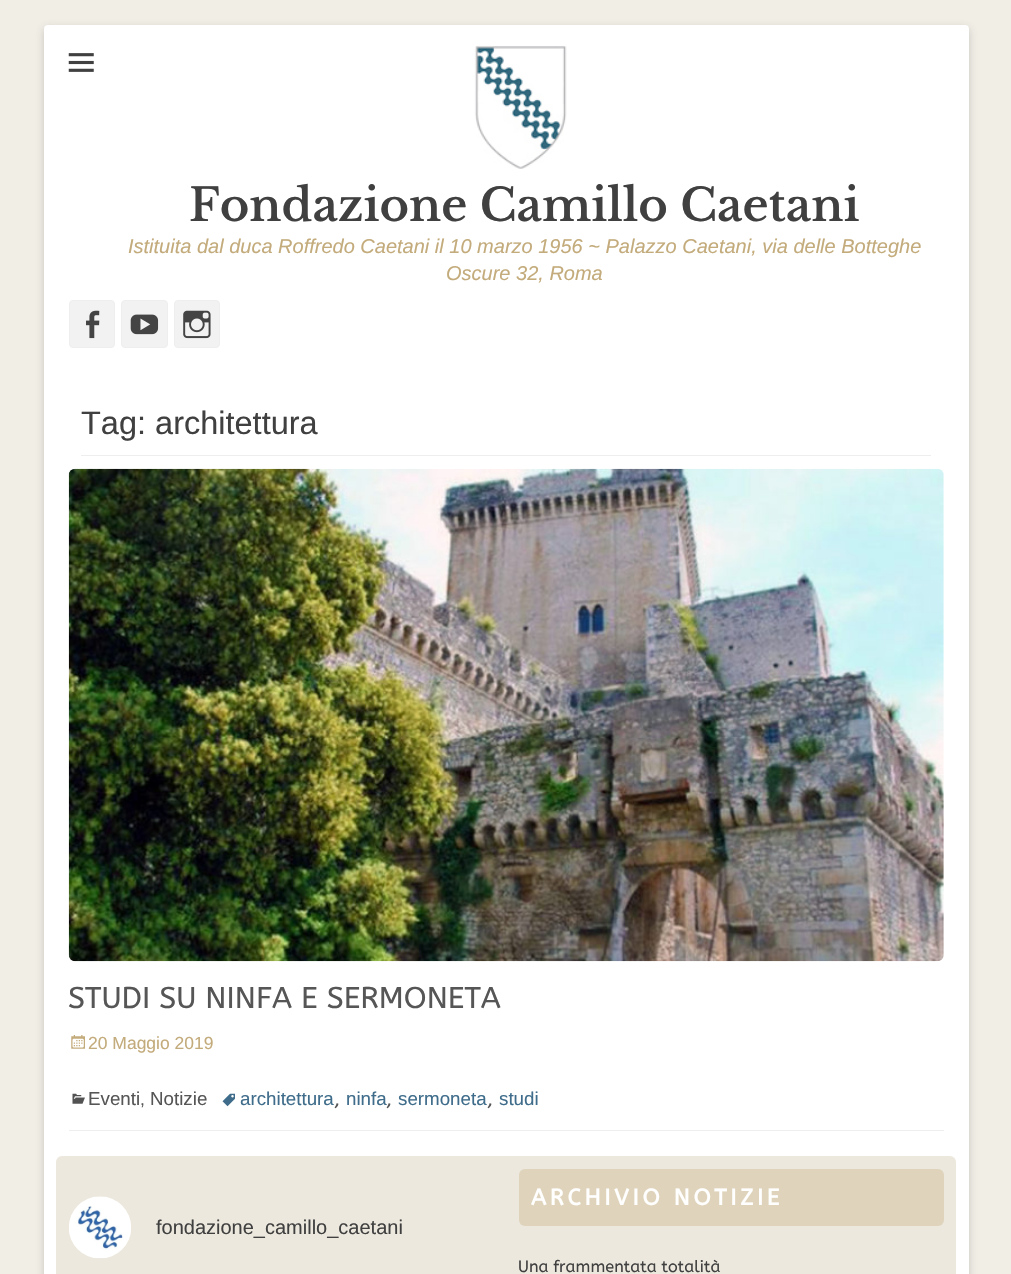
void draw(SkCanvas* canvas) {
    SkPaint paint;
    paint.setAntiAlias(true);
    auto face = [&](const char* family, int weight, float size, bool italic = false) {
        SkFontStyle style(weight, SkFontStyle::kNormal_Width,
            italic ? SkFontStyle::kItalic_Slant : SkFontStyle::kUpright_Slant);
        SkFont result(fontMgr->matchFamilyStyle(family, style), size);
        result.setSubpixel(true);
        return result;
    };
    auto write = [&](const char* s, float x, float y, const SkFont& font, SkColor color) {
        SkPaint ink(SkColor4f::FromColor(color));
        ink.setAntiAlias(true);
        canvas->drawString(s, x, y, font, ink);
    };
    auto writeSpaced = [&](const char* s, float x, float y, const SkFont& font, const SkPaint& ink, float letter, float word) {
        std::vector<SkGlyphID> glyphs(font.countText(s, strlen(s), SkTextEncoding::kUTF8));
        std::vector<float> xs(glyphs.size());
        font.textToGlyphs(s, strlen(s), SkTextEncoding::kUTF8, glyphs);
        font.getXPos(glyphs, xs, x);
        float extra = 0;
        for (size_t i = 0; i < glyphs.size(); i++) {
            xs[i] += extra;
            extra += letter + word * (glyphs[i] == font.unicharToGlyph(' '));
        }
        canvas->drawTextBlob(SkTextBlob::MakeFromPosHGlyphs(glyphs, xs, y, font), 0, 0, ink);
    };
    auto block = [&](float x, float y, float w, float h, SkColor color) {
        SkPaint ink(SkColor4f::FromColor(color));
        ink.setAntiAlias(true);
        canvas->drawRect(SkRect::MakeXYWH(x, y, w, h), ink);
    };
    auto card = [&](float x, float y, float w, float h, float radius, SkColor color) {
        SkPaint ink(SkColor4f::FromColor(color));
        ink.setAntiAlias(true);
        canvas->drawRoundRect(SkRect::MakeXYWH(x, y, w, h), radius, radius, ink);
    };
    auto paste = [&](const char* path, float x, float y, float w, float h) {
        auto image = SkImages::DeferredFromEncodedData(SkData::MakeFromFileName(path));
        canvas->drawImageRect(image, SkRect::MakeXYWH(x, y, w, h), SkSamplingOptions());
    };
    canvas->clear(SkColorSetRGB(241, 238, 230));
    paint.setColor(SkColorSetARGB(77, 100, 100, 100));
    paint.setMaskFilter(SkMaskFilter::MakeBlur(kNormal_SkBlurStyle, 4));
    canvas->drawRoundRect(SkRect::MakeXYWH(44, 28, 925, 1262), 4, 4, paint);
    paint.setMaskFilter(nullptr);
    card(44, 25, 925, 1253, 4, SK_ColorWHITE);
    paste("pic1.png", 68, 53, 26, 19);
    paste("pic2.png", 474, 45, 93, 124);
    auto kFont1 = face("Libre Baskerville", 600, 45);
    write("Fondazione Camillo Caetani", 189, 221, kFont1, SkColorSetRGB(64, 64, 64));
    auto kFont2 = face("Liberation Sans", 400, 20, true);
    write("Istituita dal duca Roffredo Caetani il 10 marzo 1956 ~ Palazzo Caetani, via delle Botteghe", 128, 253, kFont2, SkColorSetRGB(195, 171, 123));
    write("Oscure 32, Roma", 446, 280, kFont2, SkColorSetRGB(195, 171, 123));
    paint.setColor(SkColorSetRGB(242, 242, 242));
    canvas->drawRoundRect(SkRect::MakeXYWH(69.5f, 300.5f, 45, 47), 3.5f, 3.5f, paint);
    paint.setStyle(SkPaint::kStroke_Style);
    paint.setStrokeWidth(1);
    paint.setColor(SkColorSetRGB(238, 238, 238));
    canvas->drawRoundRect(SkRect::MakeXYWH(69.5f, 300.5f, 45, 47), 3.5f, 3.5f, paint);
    paste("pic3.png", 86, 310, 14, 29);
    paint.setStyle(SkPaint::kFill_Style);
    paint.setColor(SkColorSetRGB(242, 242, 242));
    canvas->drawRoundRect(SkRect::MakeXYWH(121.5f, 300.5f, 46, 47), 3.5f, 3.5f, paint);
    paint.setStyle(SkPaint::kStroke_Style);
    paint.setColor(SkColorSetRGB(238, 238, 238));
    canvas->drawRoundRect(SkRect::MakeXYWH(121.5f, 300.5f, 46, 47), 3.5f, 3.5f, paint);
    paste("pic4.png", 130, 314, 29, 21);
    paint.setStyle(SkPaint::kFill_Style);
    paint.setColor(SkColorSetRGB(242, 242, 242));
    canvas->drawRoundRect(SkRect::MakeXYWH(174.5f, 300.5f, 45, 47), 3.5f, 3.5f, paint);
    paint.setStyle(SkPaint::kStroke_Style);
    paint.setColor(SkColorSetRGB(238, 238, 238));
    canvas->drawRoundRect(SkRect::MakeXYWH(174.5f, 300.5f, 45, 47), 3.5f, 3.5f, paint);
    paste("pic5.png", 183, 310, 28, 29);
    block(81, 455, 850, 1, SkColorSetRGB(238, 238, 238));
    auto kFont3 = face("Liberation Sans", 400, 32.5f);
    write("Tag: architettura", 81, 434, kFont3, SkColorSetRGB(64, 64, 64));
    block(69, 1130, 875, 1, SkColorSetRGB(238, 238, 238));
    paste("pic6.png", 68, 468, 876, 494);
    auto kFont4 = face("ABeeZee", 400, 30);
    write("STUDI SU NINFA E SERMONETA", 68, 1008, kFont4, SkColorSetRGB(86, 86, 86));
    paste("pic7.png", 71, 1035, 14, 14);
    auto kFont5 = face("Liberation Sans", 400, 17.5f);
    write("20 Maggio 2019", 88, 1049, kFont5, SkColorSetRGB(195, 171, 123));
    paste("pic8.png", 72, 1093, 13, 11);
    auto kFont6 = face("Liberation Sans", 400, 18.75f);
    write("Eventi", 88, 1105, kFont6, SkColorSetRGB(86, 86, 86));
    write(",", 140, 1105, kFont5, SkColorSetRGB(86, 86, 86));
    write("Notizie", 150, 1105, kFont6, SkColorSetRGB(86, 86, 86));
    paste("pic9.png", 222, 1093, 13, 14);
    write("architettura", 240, 1105, kFont6, SkColorSetRGB(62, 108, 138));
    auto kFont7 = face("ABeeZee", 400, 20);
    write(",", 334, 1105, kFont7, SkColorSetRGB(86, 86, 86));
    write("ninfa", 346, 1105, kFont6, SkColorSetRGB(62, 108, 138));
    write(",", 386, 1105, kFont7, SkColorSetRGB(86, 86, 86));
    write("sermoneta", 398, 1105, kFont6, SkColorSetRGB(62, 108, 138));
    write(",", 487, 1105, kFont7, SkColorSetRGB(86, 86, 86));
    write("studi", 499, 1105, kFont6, SkColorSetRGB(62, 108, 138));
    card(56, 1156, 900, 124, 6, SkColorSetRGB(236, 232, 221));
    paste("pic10.png", 69, 1196, 62, 63);
    auto kFont8 = face("Liberation Sans", 400, 20);
    write("fondazione_camillo_caetani", 156, 1234, kFont8, SkColorSetRGB(64, 64, 64));
    card(519, 1169, 425, 57, 6, SkColorSetRGB(223, 212, 187));
    auto kFont9 = face("ABeeZee", 700, 22.5f);
    paint.setStyle(SkPaint::kFill_Style);
    paint.setColor(SK_ColorWHITE);
    writeSpaced("ARCHIVIO NOTIZIE", 531, 1205, kFont9, paint, 3.75f, 0);
    auto kFont10 = face("ABeeZee", 400, 16.25f);
    write("Una frammentata totalità", 518, 1272, kFont10, SkColorSetRGB(64, 64, 64));
}
